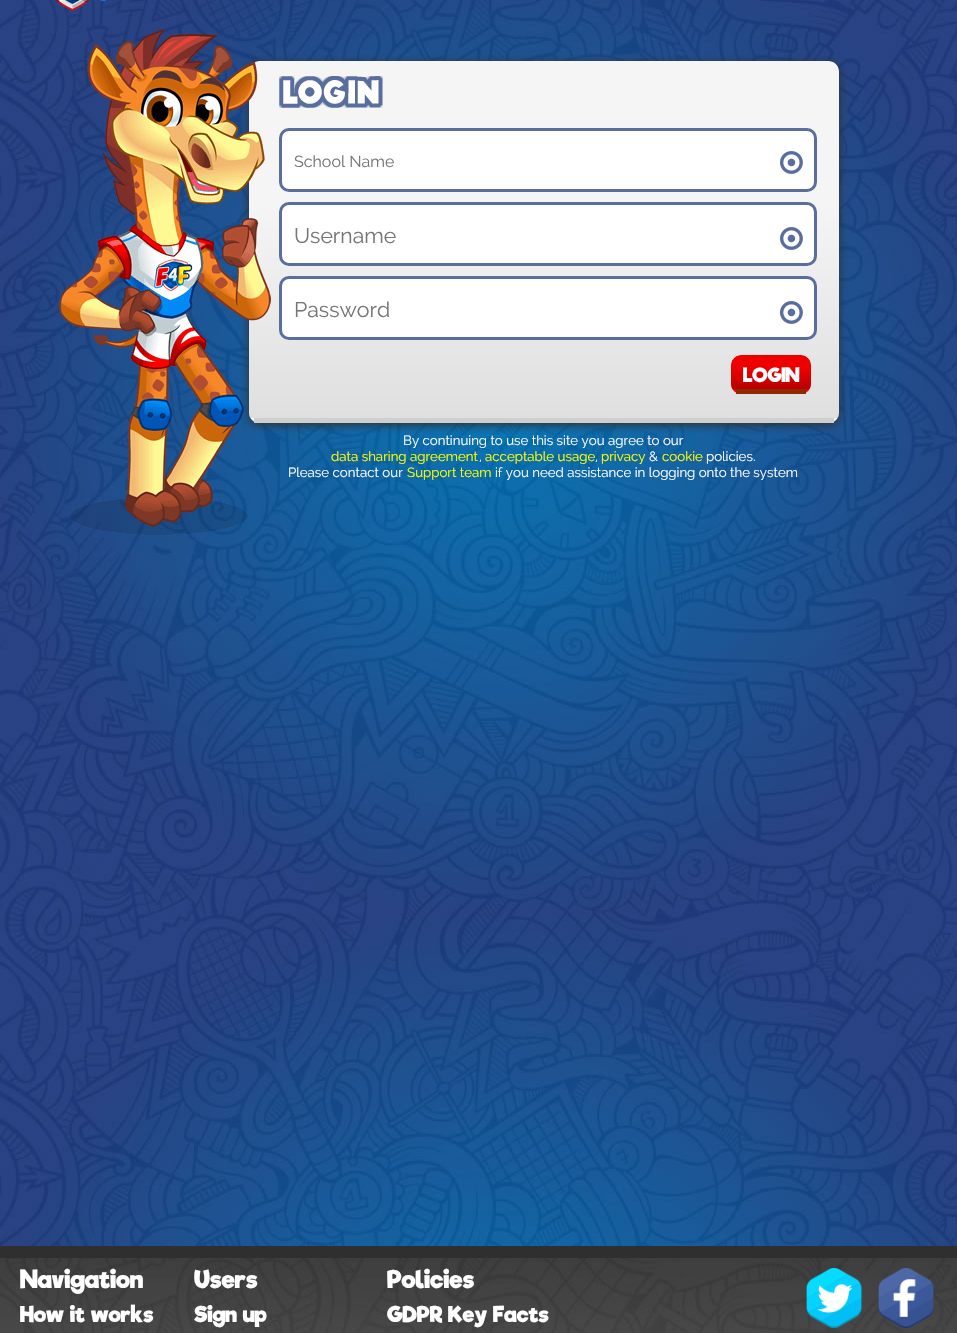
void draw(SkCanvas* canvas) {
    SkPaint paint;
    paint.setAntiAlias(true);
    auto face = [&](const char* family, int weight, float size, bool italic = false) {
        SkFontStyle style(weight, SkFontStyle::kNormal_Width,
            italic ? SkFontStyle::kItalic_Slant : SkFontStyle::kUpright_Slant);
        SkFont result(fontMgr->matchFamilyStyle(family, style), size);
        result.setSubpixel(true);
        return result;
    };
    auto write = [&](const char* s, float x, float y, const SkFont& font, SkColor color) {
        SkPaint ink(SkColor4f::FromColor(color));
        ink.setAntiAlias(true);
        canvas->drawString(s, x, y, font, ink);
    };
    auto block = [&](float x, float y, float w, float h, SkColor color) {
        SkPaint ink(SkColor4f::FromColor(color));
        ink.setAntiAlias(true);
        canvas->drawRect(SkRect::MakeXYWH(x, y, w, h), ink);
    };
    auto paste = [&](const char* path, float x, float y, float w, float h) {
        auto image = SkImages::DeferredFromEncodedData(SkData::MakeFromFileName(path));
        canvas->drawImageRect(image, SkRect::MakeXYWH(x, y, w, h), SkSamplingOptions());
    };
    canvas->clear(SK_ColorWHITE);
    paste("pic1.png", 0, 0, 957, 1246);
    paste("pic2.png", 52, 0, 55, 11);
    paint.setColor(SkColorSetRGB(47, 47, 47));
    paint.setMaskFilter(SkMaskFilter::MakeBlur(kNormal_SkBlurStyle, 5));
    canvas->drawRoundRect(SkRect::MakeXYWH(249, 63, 590, 362), 10, 10, paint);
    paint.setMaskFilter(nullptr);
    canvas->save();
    canvas->clipPath(SkPathBuilder().moveTo(259, 61).lineTo(829, 61).cubicTo(834.5f, 61, 839, 65.5f, 839, 71).lineTo(839, 413).cubicTo(839, 418.5f, 834.5f, 423, 829, 423).lineTo(259, 423).cubicTo(253.5f, 423, 249, 418.5f, 249, 413).lineTo(249, 71).cubicTo(249, 65.5f, 253.5f, 61, 259, 61).close().detach(), true);
    {
        const SkColor colors[] = {SkColorSetRGB(245, 245, 245), SkColorSetRGB(223, 223, 223)};
        const float stops[] = {0.4f, 1};
        const SkPoint ends[] = {{544, 61}, {544, 418}};
        paint.setShader(SkGradientShader::MakeLinear(ends, colors, stops, 2, SkTileMode::kClamp));
        paint.setAlpha(255);
    }
    canvas->drawPath(SkPathBuilder().moveTo(259, 61).lineTo(829, 61).cubicTo(834.5f, 61, 839, 65.5f, 839, 71).lineTo(839, 418).lineTo(249, 418).lineTo(249, 71).cubicTo(249, 65.5f, 253.5f, 61, 259, 61).close().detach(), paint);
    {
        const SkColor colors[] = {SkColorSetRGB(245, 245, 245), SkColorSetRGB(223, 223, 223)};
        const float stops[] = {0.4f, 1};
        const SkPoint ends[] = {{544, 418}, {544, 775}};
        paint.setShader(SkGradientShader::MakeLinear(ends, colors, stops, 2, SkTileMode::kClamp));
        paint.setAlpha(255);
    }
    canvas->drawRect(SkRect::MakeXYWH(249, 418, 590, 4), paint);
    canvas->restore();
    block(254, 418, 580, 5, SkColorSetRGB(207, 207, 207));
    paste("pic6.png", 70, 498, 178, 37);
    paste("pic3.png", 59, 28, 212, 499);
    paste("pic4.png", 279, 76, 104, 32);
    paint.setShader(nullptr);
    paint.setColor(SK_ColorWHITE);
    canvas->drawRoundRect(SkRect::MakeXYWH(280.5f, 129.5f, 535, 61), 8.5f, 8.5f, paint);
    paint.setStyle(SkPaint::kStroke_Style);
    paint.setStrokeWidth(3);
    paint.setColor(SkColorSetRGB(89, 110, 157));
    canvas->drawRoundRect(SkRect::MakeXYWH(280.5f, 129.5f, 535, 61), 8.5f, 8.5f, paint);
    auto kFont1 = face("Raleway", 400, 16);
    write("School Name", 294, 167, kFont1, SkColorSetRGB(117, 117, 117));
    paste("pic5.png", 780, 151, 23, 23);
    paint.setStyle(SkPaint::kFill_Style);
    paint.setColor(SK_ColorWHITE);
    canvas->drawRoundRect(SkRect::MakeXYWH(280.5f, 203.5f, 535, 61), 8.5f, 8.5f, paint);
    paint.setStyle(SkPaint::kStroke_Style);
    paint.setColor(SkColorSetRGB(89, 110, 157));
    canvas->drawRoundRect(SkRect::MakeXYWH(280.5f, 203.5f, 535, 61), 8.5f, 8.5f, paint);
    auto kFont2 = face("Raleway", 400, 21.25f);
    write("Username", 294, 243, kFont2, SkColorSetRGB(117, 117, 117));
    paste("pic5.png", 780, 227, 23, 23);
    paint.setStyle(SkPaint::kFill_Style);
    paint.setColor(SK_ColorWHITE);
    canvas->drawRoundRect(SkRect::MakeXYWH(280.5f, 277.5f, 535, 61), 8.5f, 8.5f, paint);
    paint.setStyle(SkPaint::kStroke_Style);
    paint.setColor(SkColorSetRGB(89, 110, 157));
    canvas->drawRoundRect(SkRect::MakeXYWH(280.5f, 277.5f, 535, 61), 8.5f, 8.5f, paint);
    write("Password", 294, 317, kFont2, SkColorSetRGB(117, 117, 117));
    paste("pic5.png", 780, 301, 23, 23);
    canvas->save();
    canvas->clipPath(SkPathBuilder().moveTo(741, 355).lineTo(801, 355).cubicTo(806.5f, 355, 811, 359.5f, 811, 365).lineTo(811, 384).cubicTo(811, 389.5f, 806.5f, 394, 801, 394).lineTo(741, 394).cubicTo(735.5f, 394, 731, 389.5f, 731, 384).lineTo(731, 365).cubicTo(731, 359.5f, 735.5f, 355, 741, 355).close().detach(), true);
    paint.setStyle(SkPaint::kFill_Style);
    {
        const SkColor colors[] = {SkColorSetRGB(238, 0, 0), SkColorSetRGB(183, 0, 0)};
        const float stops[] = {0.4f, 1};
        const SkPoint ends[] = {{771, 355}, {771, 389}};
        paint.setShader(SkGradientShader::MakeLinear(ends, colors, stops, 2, SkTileMode::kClamp));
        paint.setAlpha(255);
    }
    canvas->drawPath(SkPathBuilder().moveTo(741, 355).lineTo(801, 355).cubicTo(806.5f, 355, 811, 359.5f, 811, 365).lineTo(811, 389).lineTo(731, 389).lineTo(731, 365).cubicTo(731, 359.5f, 735.5f, 355, 741, 355).close().detach(), paint);
    {
        const SkColor colors[] = {SkColorSetRGB(238, 0, 0), SkColorSetRGB(183, 0, 0)};
        const float stops[] = {0.4f, 1};
        const SkPoint ends[] = {{771, 389}, {771, 423}};
        paint.setShader(SkGradientShader::MakeLinear(ends, colors, stops, 2, SkTileMode::kClamp));
        paint.setAlpha(255);
    }
    canvas->drawRect(SkRect::MakeXYWH(731, 389, 80, 4), paint);
    canvas->restore();
    block(736, 389, 70, 5, SkColorSetRGB(144, 40, 0));
    auto kFont3 = face("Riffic", 700, 19);
    write("LOGIN", 743, 382, kFont3, SK_ColorWHITE);
    auto kFont4 = face("Raleway", 400, 13.3f);
    write("By continuing to use this site you agree to our", 403, 445, kFont4, SK_ColorWHITE);
    write("data sharing agreement", 331, 461, kFont4, SkColorSetRGB(255, 255, 0));
    write(",", 479, 461, kFont4, SK_ColorWHITE);
    write("acceptable usage", 485, 461, kFont4, SkColorSetRGB(255, 255, 0));
    write(",", 595, 461, kFont4, SK_ColorWHITE);
    write("privacy", 601, 461, kFont4, SkColorSetRGB(255, 255, 0));
    write("&", 649, 461, kFont4, SK_ColorWHITE);
    write("cookie", 662, 461, kFont4, SkColorSetRGB(255, 255, 0));
    write("policies.", 706, 461, kFont4, SK_ColorWHITE);
    write("Please contact our", 288, 477, kFont4, SK_ColorWHITE);
    write("Support team", 407, 477, kFont4, SkColorSetRGB(255, 255, 0));
    write("if you need assistance in logging onto the system", 495, 477, kFont4, SK_ColorWHITE);
    paste("pic7.png", 0, 1258, 957, 75);
    block(0, 1246, 957, 12, SkColorSetRGB(47, 47, 47));
    auto kFont5 = face("Riffic", 700, 24);
    write("Navigation", 20, 1288, kFont5, SK_ColorWHITE);
    auto kFont6 = face("Riffic", 700, 21.25f);
    write("How it works", 20, 1322, kFont6, SK_ColorWHITE);
    write("Users", 194, 1288, kFont5, SK_ColorWHITE);
    write("Sign up", 194, 1322, kFont6, SK_ColorWHITE);
    write("Policies", 387, 1288, kFont5, SK_ColorWHITE);
    write("GDPR Key Facts", 387, 1322, kFont6, SK_ColorWHITE);
    paste("pic8.png", 806, 1268, 57, 60);
    paste("pic9.png", 878, 1268, 56, 60);
}
